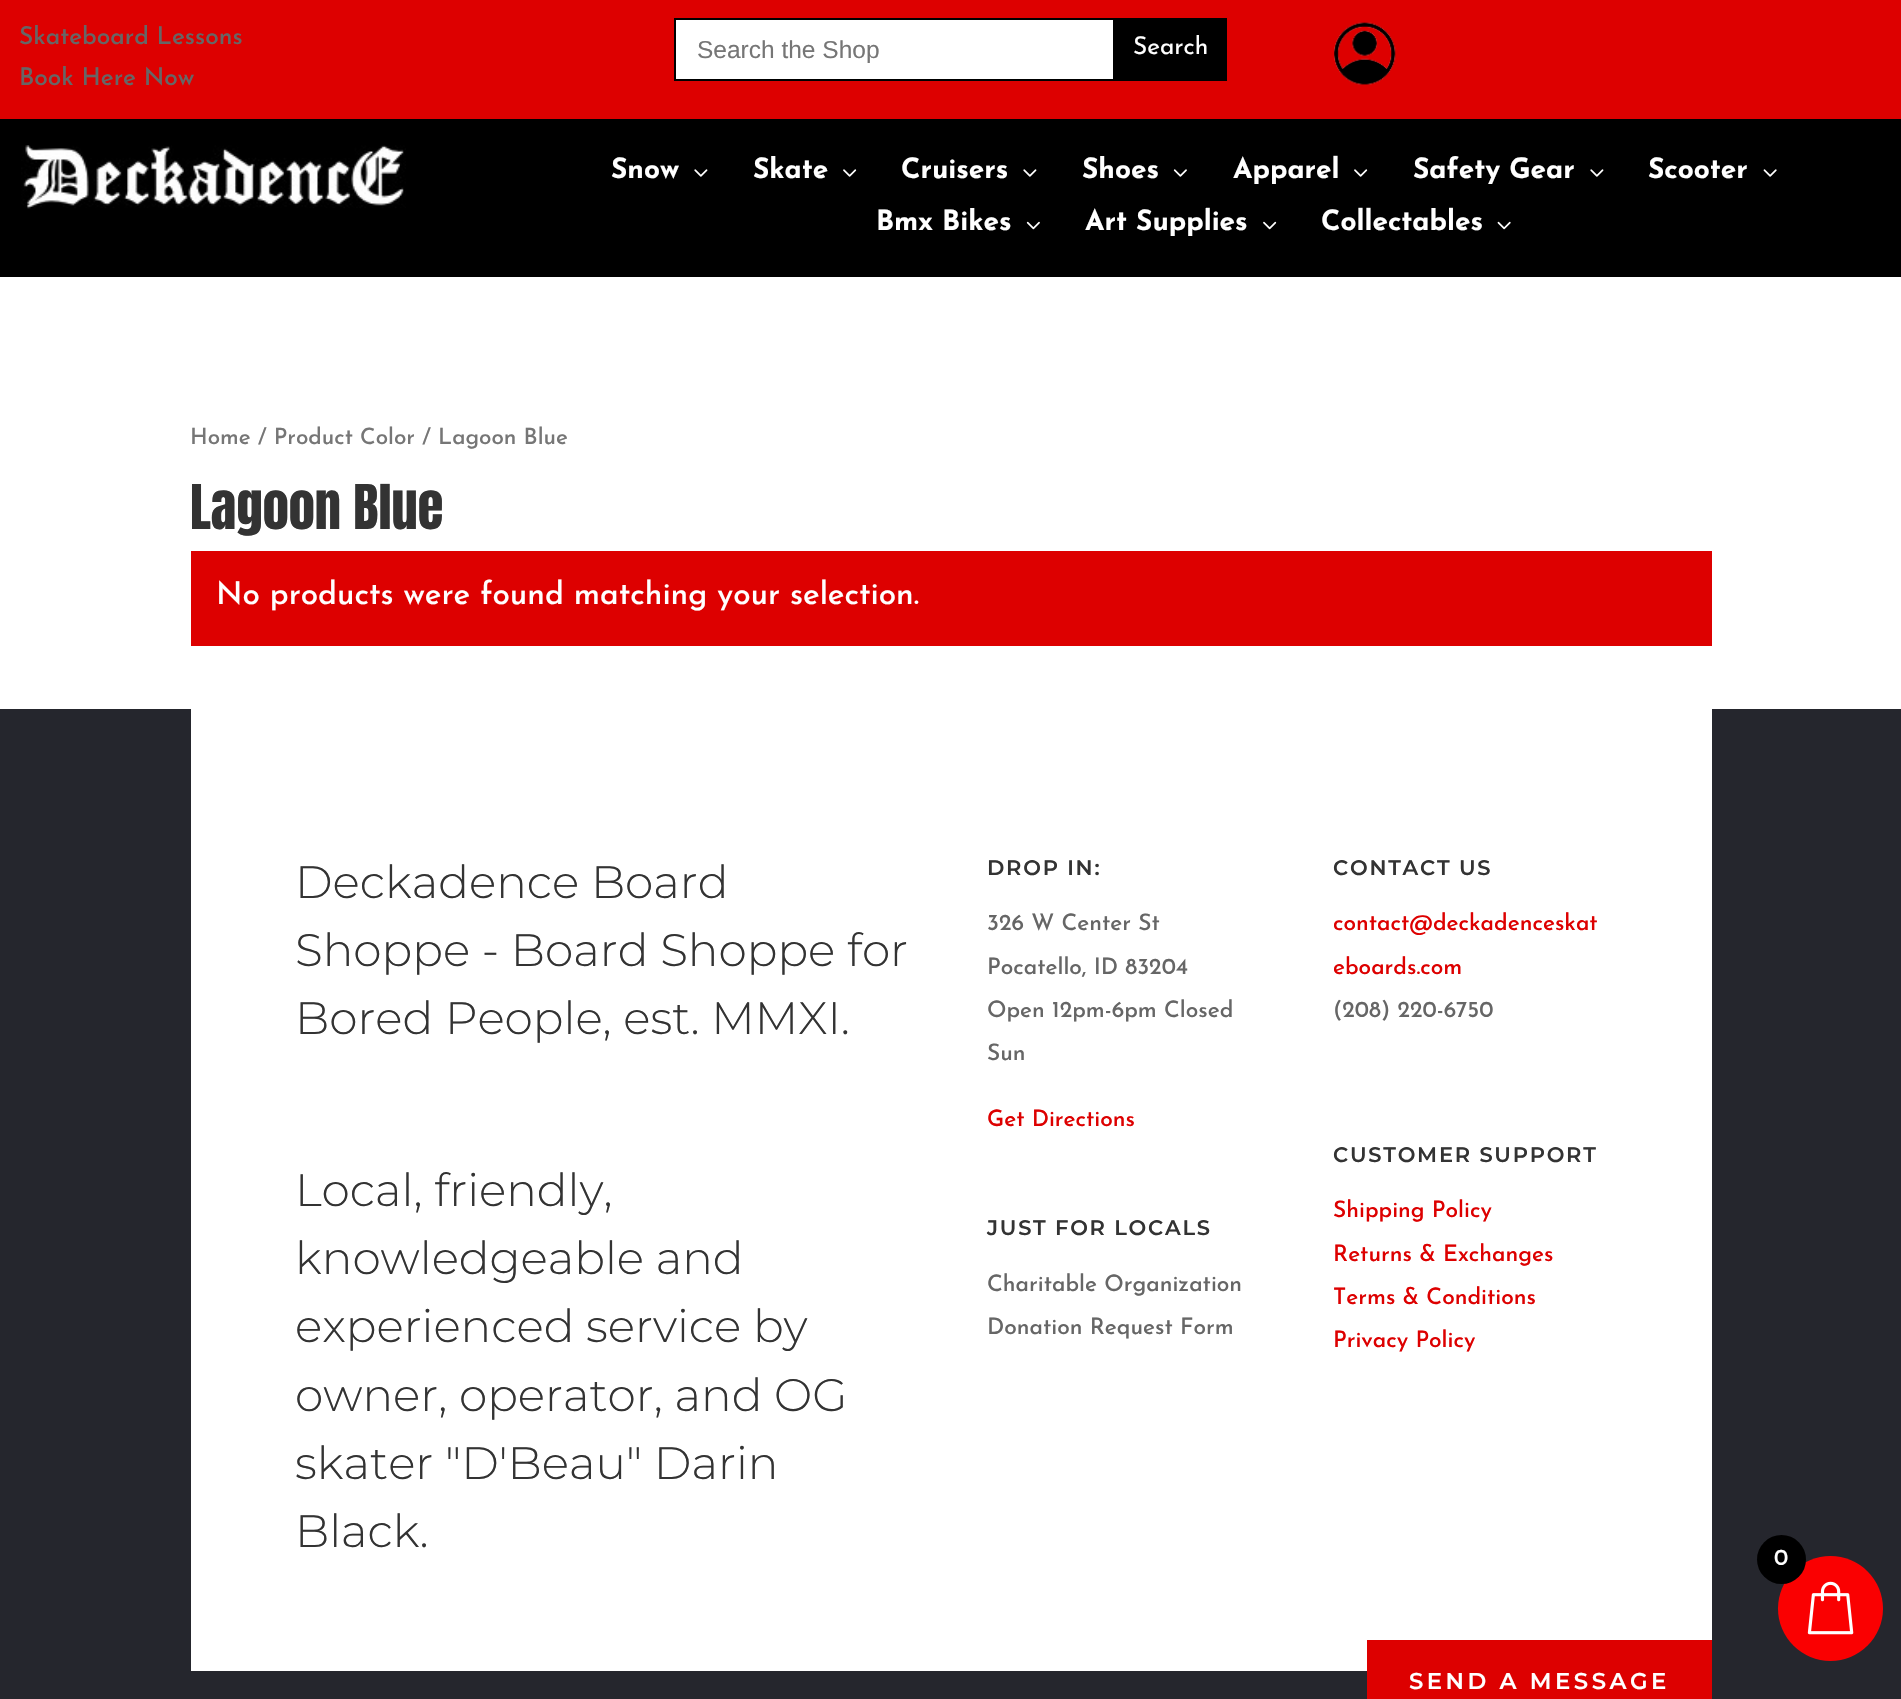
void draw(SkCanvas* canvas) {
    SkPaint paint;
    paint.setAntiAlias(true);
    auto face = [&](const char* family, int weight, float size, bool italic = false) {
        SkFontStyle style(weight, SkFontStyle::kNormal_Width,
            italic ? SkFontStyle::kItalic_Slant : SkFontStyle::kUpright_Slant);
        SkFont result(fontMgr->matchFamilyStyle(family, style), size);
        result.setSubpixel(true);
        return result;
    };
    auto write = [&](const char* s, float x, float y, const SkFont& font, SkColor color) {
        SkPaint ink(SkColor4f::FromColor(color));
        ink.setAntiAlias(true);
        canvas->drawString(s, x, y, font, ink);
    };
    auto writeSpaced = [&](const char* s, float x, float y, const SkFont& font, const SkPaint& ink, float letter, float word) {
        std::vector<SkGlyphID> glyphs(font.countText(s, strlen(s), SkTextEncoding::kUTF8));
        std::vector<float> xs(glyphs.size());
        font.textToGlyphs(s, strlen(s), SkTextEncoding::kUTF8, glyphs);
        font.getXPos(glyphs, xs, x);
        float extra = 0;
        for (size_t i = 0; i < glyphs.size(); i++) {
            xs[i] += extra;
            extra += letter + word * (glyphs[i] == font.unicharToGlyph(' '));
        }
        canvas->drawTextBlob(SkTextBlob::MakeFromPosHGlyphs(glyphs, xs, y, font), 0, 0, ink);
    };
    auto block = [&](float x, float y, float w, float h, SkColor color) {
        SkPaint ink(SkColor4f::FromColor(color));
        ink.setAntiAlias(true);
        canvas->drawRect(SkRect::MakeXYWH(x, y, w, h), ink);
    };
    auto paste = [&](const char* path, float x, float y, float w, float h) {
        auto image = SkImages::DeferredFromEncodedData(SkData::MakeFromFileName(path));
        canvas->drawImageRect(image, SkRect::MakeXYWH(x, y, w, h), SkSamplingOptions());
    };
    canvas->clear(SK_ColorWHITE);
    block(0, 0, 1901, 119, SkColorSetRGB(221, 0, 0));
    auto kFont1 = face("Josefin Sans", 500, 24.5f);
    write("Skateboard Lessons", 19, 44, kFont1, SkColorSetRGB(102, 102, 102));
    write("Book Here Now", 19, 85, kFont1, SkColorSetRGB(102, 102, 102));
    block(676, 20, 437, 59, SK_ColorWHITE);
    paint.setStyle(SkPaint::kStroke_Style);
    paint.setStrokeWidth(2);
    paint.setColor(SK_ColorBLACK);
    canvas->drawRect(SkRect::MakeXYWH(675, 19, 551, 61), paint);
    auto kFont2 = face("Liberation Sans", 400, 24.5f);
    write("Search the Shop", 697, 58, kFont2, SkColorSetRGB(118, 118, 118));
    block(1113, 20, 112, 59, SK_ColorBLACK);
    auto kFont3 = face("Josefin Sans", 400, 24.5f);
    write("Search", 1133, 54, kFont3, SK_ColorWHITE);
    paste("pic1.png", 1334, 22, 62, 63);
    block(0, 119, 1901, 158, SK_ColorBLACK);
    paste("pic2.png", 21, 145, 385, 64);
    auto kFont4 = face("Josefin Sans", 700, 28);
    write("Snow", 611, 178, kFont4, SK_ColorWHITE);
    paste("pic3.png", 694, 169, 14, 8);
    write("Skate", 753, 178, kFont4, SK_ColorWHITE);
    paste("pic4.png", 843, 169, 14, 8);
    write("Cruisers", 901, 178, kFont4, SK_ColorWHITE);
    paste("pic3.png", 1023, 169, 14, 8);
    write("Shoes", 1082, 178, kFont4, SK_ColorWHITE);
    paste("pic5.png", 1173, 169, 14, 8);
    write("Apparel", 1233, 178, kFont4, SK_ColorWHITE);
    paste("pic4.png", 1354, 169, 14, 8);
    write("Safety Gear", 1413, 178, kFont4, SK_ColorWHITE);
    paste("pic3.png", 1590, 169, 14, 8);
    write("Scooter", 1648, 178, kFont4, SK_ColorWHITE);
    paste("pic6.png", 1763, 169, 14, 8);
    write("Bmx Bikes", 876, 230, kFont4, SK_ColorWHITE);
    paste("pic7.png", 1026, 221, 14, 9);
    write("Art Supplies", 1085, 230, kFont4, SK_ColorWHITE);
    paste("pic8.png", 1263, 221, 14, 9);
    write("Collectables", 1321, 230, kFont4, SK_ColorWHITE);
    paste("pic9.png", 1497, 221, 14, 9);
    auto kFont5 = face("Josefin Sans", 500, 22.5f);
    write("Home / Product Color / Lagoon Blue", 190, 444, kFont5, SkColorSetRGB(118, 118, 118));
    auto kFont6 = face("Anton", 400, 52.5f);
    write("Lagoon Blue", 190, 529, kFont6, SkColorSetRGB(51, 51, 51));
    block(191, 551, 1521, 95, SkColorSetRGB(221, 0, 0));
    auto kFont7 = face("Josefin Sans", 500, 31.5f);
    write("No products were found matching your selection.", 216, 604, kFont7, SK_ColorWHITE);
    block(0, 709, 1901, 990, SkColorSetRGB(37, 38, 45));
    block(191, 709, 1521, 962, SK_ColorWHITE);
    auto kFont8 = face("Montserrat", 300, 45.5f);
    write("Deckadence Board", 295, 898, kFont8, SkColorSetRGB(51, 51, 51));
    write("Shoppe - Board Shoppe for", 295, 966, kFont8, SkColorSetRGB(51, 51, 51));
    write("Bored People, est. MMXI.", 295, 1034, kFont8, SkColorSetRGB(51, 51, 51));
    write("Local, friendly,", 295, 1206, kFont8, SkColorSetRGB(51, 51, 51));
    write("knowledgeable and", 295, 1274, kFont8, SkColorSetRGB(51, 51, 51));
    write("experienced service by", 295, 1342, kFont8, SkColorSetRGB(51, 51, 51));
    write("owner, operator, and OG", 295, 1411, kFont8, SkColorSetRGB(51, 51, 51));
    write("skater \"D'Beau\" Darin", 295, 1479, kFont8, SkColorSetRGB(51, 51, 51));
    write("Black.", 295, 1547, kFont8, SkColorSetRGB(51, 51, 51));
    auto kFont9 = face("Montserrat", 600, 21);
    paint.setStyle(SkPaint::kFill_Style);
    paint.setColor(SkColorSetRGB(51, 51, 51));
    writeSpaced("DROP IN:", 987, 875, kFont9, paint, 1.75f, 0);
    auto kFont10 = face("Josefin Sans", 500, 22.75f);
    write("326 W Center St", 987, 930, kFont10, SkColorSetRGB(102, 102, 102));
    write("Pocatello, ID 83204", 987, 974, kFont10, SkColorSetRGB(102, 102, 102));
    write("Open 12pm-6pm Closed", 987, 1017, kFont10, SkColorSetRGB(102, 102, 102));
    write("Sun", 987, 1060, kFont10, SkColorSetRGB(102, 102, 102));
    write("Get Directions", 987, 1126, kFont10, SkColorSetRGB(221, 0, 0));
    writeSpaced("JUST FOR LOCALS", 987, 1235, kFont9, paint, 1.75f, 0);
    write("Charitable Organization", 987, 1291, kFont10, SkColorSetRGB(102, 102, 102));
    write("Donation Request Form", 987, 1334, kFont10, SkColorSetRGB(102, 102, 102));
    writeSpaced("CONTACT US", 1333, 875, kFont9, paint, 1.75f, 0);
    write("contact@deckadenceskat", 1333, 930, kFont10, SkColorSetRGB(221, 0, 0));
    write("eboards.com", 1333, 974, kFont10, SkColorSetRGB(221, 0, 0));
    write("(208) 220-6750", 1333, 1017, kFont10, SkColorSetRGB(102, 102, 102));
    writeSpaced("CUSTOMER SUPPORT", 1333, 1162, kFont9, paint, 1.75f, 0);
    write("Shipping Policy", 1333, 1217, kFont10, SkColorSetRGB(221, 0, 0));
    write("Returns & Exchanges", 1333, 1261, kFont10, SkColorSetRGB(221, 0, 0));
    write("Terms & Conditions", 1333, 1304, kFont10, SkColorSetRGB(221, 0, 0));
    write("Privacy Policy", 1333, 1347, kFont10, SkColorSetRGB(221, 0, 0));
    block(1367, 1640, 345, 59, SkColorSetRGB(221, 0, 0));
    auto kFont11 = face("Montserrat", 600, 22.75f);
    paint.setColor(SK_ColorWHITE);
    writeSpaced("SEND A MESSAGE", 1409, 1689, kFont11, paint, 3.5f, 0);
    paint.setColor(SkColorSetRGB(250, 0, 1));
    canvas->drawCircle(1830.5f, 1608.5f, 52.5f, paint);
    paint.setColor(SK_ColorBLACK);
    canvas->drawCircle(1781.5f, 1559.5f, 24.5f, paint);
    write("0", 1774, 1565, kFont10, SK_ColorWHITE);
    paste("pic10.png", 1807, 1581, 47, 54);
}
